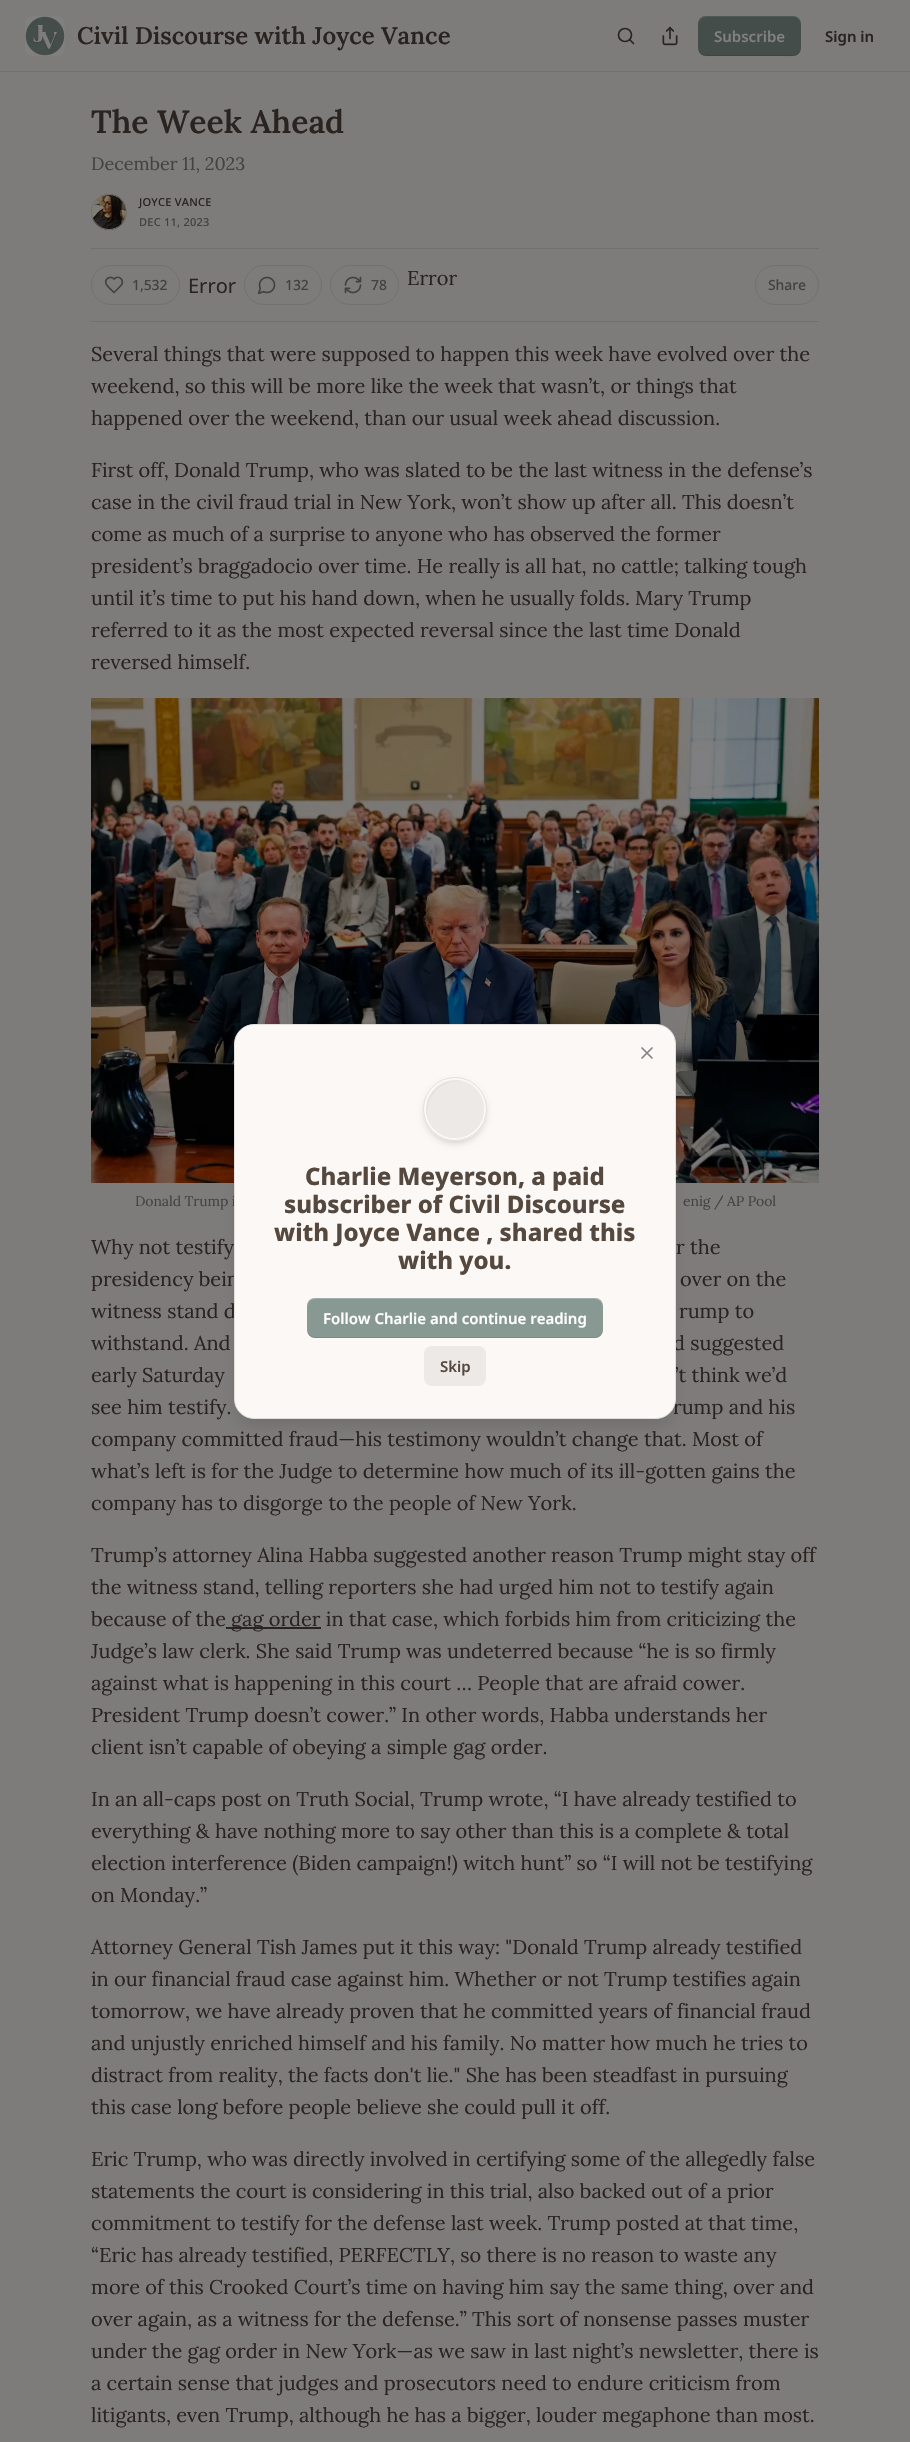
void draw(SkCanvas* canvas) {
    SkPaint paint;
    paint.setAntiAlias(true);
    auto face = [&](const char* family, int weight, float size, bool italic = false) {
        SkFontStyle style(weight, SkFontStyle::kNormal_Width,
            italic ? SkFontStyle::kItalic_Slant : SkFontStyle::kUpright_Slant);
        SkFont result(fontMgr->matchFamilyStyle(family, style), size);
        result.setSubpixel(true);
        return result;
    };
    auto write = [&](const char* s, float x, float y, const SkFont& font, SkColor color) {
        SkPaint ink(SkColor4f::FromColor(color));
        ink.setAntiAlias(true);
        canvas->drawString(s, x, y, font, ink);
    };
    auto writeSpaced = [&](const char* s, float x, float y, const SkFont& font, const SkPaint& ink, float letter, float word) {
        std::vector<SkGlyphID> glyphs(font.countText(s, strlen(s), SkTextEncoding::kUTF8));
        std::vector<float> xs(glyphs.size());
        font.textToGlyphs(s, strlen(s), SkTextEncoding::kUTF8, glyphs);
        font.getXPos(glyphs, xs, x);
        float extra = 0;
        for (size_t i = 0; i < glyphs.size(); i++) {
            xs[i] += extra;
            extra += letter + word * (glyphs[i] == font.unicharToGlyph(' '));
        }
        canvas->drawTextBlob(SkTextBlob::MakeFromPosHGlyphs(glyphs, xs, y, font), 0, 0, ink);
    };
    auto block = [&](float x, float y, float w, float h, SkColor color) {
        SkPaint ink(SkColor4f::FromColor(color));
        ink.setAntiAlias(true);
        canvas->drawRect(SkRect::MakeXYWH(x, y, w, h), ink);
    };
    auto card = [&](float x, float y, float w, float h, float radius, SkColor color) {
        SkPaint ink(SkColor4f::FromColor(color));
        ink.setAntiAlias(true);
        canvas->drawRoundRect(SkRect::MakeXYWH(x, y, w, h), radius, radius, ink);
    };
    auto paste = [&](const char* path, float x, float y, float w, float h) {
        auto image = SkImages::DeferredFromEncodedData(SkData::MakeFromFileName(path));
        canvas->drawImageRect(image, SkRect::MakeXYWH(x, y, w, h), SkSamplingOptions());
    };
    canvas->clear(SkColorSetRGB(126, 124, 123));
    block(0, 71, 910, 1, SkColorSetRGB(114, 112, 111));
    card(25, 16, 40, 40, 8, SkColorSetRGB(128, 128, 128));
    paste("pic1.png", 25, 16, 40, 40);
    auto kFont1 = face("Lora", 600, 24);
    write("Civil Discourse with Joyce Vance", 77, 44, kFont1, SkColorSetRGB(42, 36, 32));
    paint.setStyle(SkPaint::kStroke_Style);
    paint.setStrokeWidth(1.7f);
    paint.setColor(SkColorSetRGB(42, 36, 32));
    canvas->drawCircle(625, 35, 6.5f, paint);
    paint.setStrokeCap(SkPaint::kRound_Cap);
    paint.setStrokeJoin(SkPaint::kRound_Join);
    canvas->drawPath(SkPathBuilder().moveTo(633.5f, 43.5f).lineTo(630, 40).detach(), paint);
    paste("pic2.png", 662, 26, 16, 20);
    card(698, 16, 103, 40, 8, SkColorSetRGB(68, 77, 74));
    paint.setStyle(SkPaint::kFill_Style);
    paint.setColor(SkColorSetARGB(26, 0, 0, 0));
    canvas->drawPath(SkPathBuilder().moveTo(698, 47).cubicTo(698, 59, 712, 56, 720, 56).lineTo(778, 56).cubicTo(787, 56, 801, 59, 801, 47).cubicTo(801, 51, 797, 55, 793, 55).lineTo(706, 55).cubicTo(702, 55, 698, 51, 698, 47).close().detach(), paint);
    paint.setColor(SkColorSetARGB(51, 128, 128, 128));
    canvas->drawPath(SkPathBuilder().moveTo(706, 17).lineTo(793, 17).cubicTo(797, 17, 801, 21, 801, 25).cubicTo(801, 13, 787, 16, 778, 16).lineTo(720, 16).cubicTo(712, 16, 698, 13, 698, 25).cubicTo(698, 21, 702, 17, 706, 17).close().detach(), paint);
    auto kFont2 = face("Noto Sans", 600, 15);
    write("Subscribe", 714, 42, kFont2, SkColorSetRGB(128, 128, 128));
    write("Sign in", 825, 42, kFont2, SkColorSetRGB(42, 36, 32));
    auto kFont3 = face("Lora", 600, 32);
    write("The Week Ahead", 91, 133, kFont3, SkColorSetRGB(42, 36, 32));
    auto kFont4 = face("Lora", 400, 18);
    write("December 11, 2023", 91, 170, kFont4, SkColorSetRGB(67, 66, 66));
    paint.setStyle(SkPaint::kStroke_Style);
    paint.setStrokeWidth(1);
    paint.setStrokeCap(SkPaint::kButt_Cap);
    paint.setStrokeJoin(SkPaint::kMiter_Join);
    paint.setColor(SkColorSetRGB(114, 112, 111));
    canvas->drawCircle(109, 212, 17.5f, paint);
    paste("pic3.png", 91, 194, 36, 36);
    canvas->drawCircle(109, 212, 17.5f, paint);
    auto kFont5 = face("Noto Sans", 500, 11);
    paint.setStyle(SkPaint::kFill_Style);
    paint.setColor(SkColorSetRGB(42, 36, 32));
    writeSpaced("JOYCE VANCE", 139, 206, kFont5, paint, 0.25f, 0);
    paint.setColor(SkColorSetRGB(67, 66, 66));
    writeSpaced("DEC 11, 2023", 139, 226, kFont5, paint, 0.25f, 0);
    block(91, 248, 728, 1, SkColorSetRGB(114, 112, 111));
    block(91, 321, 728, 1, SkColorSetRGB(114, 112, 111));
    paint.setStyle(SkPaint::kStroke_Style);
    paint.setColor(SkColorSetRGB(114, 112, 111));
    canvas->drawRoundRect(SkRect::MakeXYWH(91.5f, 265.5f, 88, 39), 19.5f, 19.5f, paint);
    paint.setStrokeWidth(1.7f);
    paint.setStrokeCap(SkPaint::kRound_Cap);
    paint.setStrokeJoin(SkPaint::kRound_Join);
    paint.setColor(SkColorSetRGB(67, 66, 66));
    canvas->drawPath(SkPathBuilder().moveTo(120, 286.5f).cubicTo(126, 280.5f, 119, 274.5f, 114, 279).cubicTo(110.5f, 275.5f, 104.5f, 278.5f, 106, 283.5f).cubicTo(107, 286.5f, 112, 290.5f, 114, 292.5f).close().detach(), paint);
    auto kFont6 = face("Noto Sans", 500, 14);
    paint.setStyle(SkPaint::kFill_Style);
    writeSpaced("1,532", 132, 290, kFont6, paint, -0.1f, 0);
    auto kFont7 = face("Noto Sans", 400, 20);
    write("Error", 188, 293, kFont7, SkColorSetRGB(42, 36, 32));
    paint.setStyle(SkPaint::kStroke_Style);
    paint.setStrokeWidth(1);
    paint.setStrokeCap(SkPaint::kButt_Cap);
    paint.setStrokeJoin(SkPaint::kMiter_Join);
    paint.setColor(SkColorSetRGB(114, 112, 111));
    canvas->drawRoundRect(SkRect::MakeXYWH(244.5f, 265.5f, 77, 39), 19.5f, 19.5f, paint);
    paste("pic4.png", 257, 276, 19, 19);
    paint.setStyle(SkPaint::kFill_Style);
    paint.setColor(SkColorSetRGB(67, 66, 66));
    writeSpaced("132", 285, 290, kFont6, paint, -0.1f, 0);
    paint.setStyle(SkPaint::kStroke_Style);
    paint.setColor(SkColorSetRGB(114, 112, 111));
    canvas->drawRoundRect(SkRect::MakeXYWH(330.5f, 265.5f, 68, 39), 19.5f, 19.5f, paint);
    paste("pic5.png", 344, 276, 18, 18);
    paint.setStyle(SkPaint::kFill_Style);
    paint.setColor(SkColorSetRGB(67, 66, 66));
    writeSpaced("78", 371, 290, kFont6, paint, -0.1f, 0);
    auto kFont8 = face("Lora", 400, 20);
    write("Error", 407, 285, kFont8, SkColorSetRGB(42, 36, 32));
    paint.setStyle(SkPaint::kStroke_Style);
    paint.setColor(SkColorSetRGB(114, 112, 111));
    canvas->drawRoundRect(SkRect::MakeXYWH(755.5f, 265.5f, 63, 39), 19.5f, 19.5f, paint);
    paint.setStyle(SkPaint::kFill_Style);
    paint.setColor(SkColorSetRGB(67, 66, 66));
    writeSpaced("Share", 768, 290, kFont6, paint, -0.1f, 0);
    write("Several things that were supposed to happen this week have evolved over the", 91, 361, kFont8, SkColorSetRGB(42, 36, 32));
    write("weekend, so this will be more like the week that wasn’t, or things that", 91, 393, kFont8, SkColorSetRGB(42, 36, 32));
    write("happened over the weekend, than our usual week ahead discussion.", 91, 425, kFont8, SkColorSetRGB(42, 36, 32));
    write("First off, Donald Trump, who was slated to be the last witness in the defense’s", 91, 477, kFont8, SkColorSetRGB(42, 36, 32));
    write("case in the civil fraud trial in New York, won’t show up after all. This doesn’t", 91, 509, kFont8, SkColorSetRGB(42, 36, 32));
    write("come as much of a surprise to anyone who has observed the former", 91, 541, kFont8, SkColorSetRGB(42, 36, 32));
    write("president’s braggadocio over time. He really is all hat, no cattle; talking tough", 91, 573, kFont8, SkColorSetRGB(42, 36, 32));
    write("until it’s time to put his hand down, when he usually folds. Mary Trump", 91, 605, kFont8, SkColorSetRGB(42, 36, 32));
    write("referred to it as the most expected reversal since the last time Donald", 91, 637, kFont8, SkColorSetRGB(42, 36, 32));
    write("reversed himself.", 91, 669, kFont8, SkColorSetRGB(42, 36, 32));
    paste("pic6.png", 91, 698, 728, 485);
    auto kFont9 = face("Lora", 400, 14);
    writeSpaced("Donald Trump i", 135, 1206, kFont9, paint, -0.1f, 0);
    writeSpaced("enig / AP Pool", 683, 1206, kFont9, paint, -0.1f, 0);
    write("Why not testify", 91, 1254, kFont8, SkColorSetRGB(42, 36, 32));
    write("r the", 676, 1254, kFont8, SkColorSetRGB(42, 36, 32));
    write("presidency bein", 91, 1286, kFont8, SkColorSetRGB(42, 36, 32));
    write("over on the", 680, 1286, kFont8, SkColorSetRGB(42, 36, 32));
    write("witness stand d", 91, 1318, kFont8, SkColorSetRGB(42, 36, 32));
    write("rump to", 679, 1318, kFont8, SkColorSetRGB(42, 36, 32));
    write("withstand. And", 91, 1350, kFont8, SkColorSetRGB(42, 36, 32));
    write("d suggested", 673, 1350, kFont8, SkColorSetRGB(42, 36, 32));
    write("early Saturday", 91, 1382, kFont8, SkColorSetRGB(42, 36, 32));
    write("’t think we’d", 675, 1382, kFont8, SkColorSetRGB(42, 36, 32));
    write("see him testify.", 91, 1414, kFont8, SkColorSetRGB(42, 36, 32));
    write("rump and his", 673, 1414, kFont8, SkColorSetRGB(42, 36, 32));
    write("company committed fraud—his testimony wouldn’t change that. Most of", 91, 1446, kFont8, SkColorSetRGB(42, 36, 32));
    write("what’s left is for the Judge to determine how much of its ill-gotten gains the", 91, 1478, kFont8, SkColorSetRGB(42, 36, 32));
    write("company has to disgorge to the people of New York.", 91, 1510, kFont8, SkColorSetRGB(42, 36, 32));
    write("Trump’s attorney Alina Habba suggested another reason Trump might stay off", 91, 1562, kFont8, SkColorSetRGB(42, 36, 32));
    write("the witness stand, telling reporters she had urged him not to testify again", 91, 1594, kFont8, SkColorSetRGB(42, 36, 32));
    write("because of the", 91, 1626, kFont8, SkColorSetRGB(42, 36, 32));
    block(226, 1627, 95, 2, SkColorSetRGB(42, 36, 32));
    write("gag order in that case, which forbids him from criticizing the", 231, 1626, kFont8, SkColorSetRGB(42, 36, 32));
    write("Judge’s law clerk. She said Trump was undeterred because “he is so firmly", 91, 1658, kFont8, SkColorSetRGB(42, 36, 32));
    write("against what is happening in this court … People that are afraid cower.", 91, 1690, kFont8, SkColorSetRGB(42, 36, 32));
    write("President Trump doesn’t cower.” In other words, Habba understands her", 91, 1722, kFont8, SkColorSetRGB(42, 36, 32));
    write("client isn’t capable of obeying a simple gag order.", 91, 1754, kFont8, SkColorSetRGB(42, 36, 32));
    write("In an all-caps post on Truth Social, Trump wrote, “I have already testified to", 91, 1806, kFont8, SkColorSetRGB(42, 36, 32));
    write("everything & have nothing more to say other than this is a complete & total", 91, 1838, kFont8, SkColorSetRGB(42, 36, 32));
    write("election interference (Biden campaign!) witch hunt” so “I will not be testifying", 91, 1870, kFont8, SkColorSetRGB(42, 36, 32));
    write("on Monday.”", 91, 1902, kFont8, SkColorSetRGB(42, 36, 32));
    write("Attorney General Tish James put it this way: \"Donald Trump already testified", 91, 1954, kFont8, SkColorSetRGB(42, 36, 32));
    write("in our financial fraud case against him. Whether or not Trump testifies again", 91, 1986, kFont8, SkColorSetRGB(42, 36, 32));
    write("tomorrow, we have already proven that he committed years of financial fraud", 91, 2018, kFont8, SkColorSetRGB(42, 36, 32));
    write("and unjustly enriched himself and his family. No matter how much he tries to", 91, 2050, kFont8, SkColorSetRGB(42, 36, 32));
    write("distract from reality, the facts don't lie.\" She has been steadfast in pursuing", 91, 2082, kFont8, SkColorSetRGB(42, 36, 32));
    write("this case long before people believe she could pull it off.", 91, 2114, kFont8, SkColorSetRGB(42, 36, 32));
    write("Eric Trump, who was directly involved in certifying some of the allegedly false", 91, 2166, kFont8, SkColorSetRGB(42, 36, 32));
    write("statements the court is considering in this trial, also backed out of a prior", 91, 2198, kFont8, SkColorSetRGB(42, 36, 32));
    write("commitment to testify for the defense last week. Trump posted at that time,", 91, 2230, kFont8, SkColorSetRGB(42, 36, 32));
    write("“Eric has already testified, PERFECTLY, so there is no reason to waste any", 91, 2262, kFont8, SkColorSetRGB(42, 36, 32));
    write("more of this Crooked Court’s time on having him say the same thing, over and", 91, 2294, kFont8, SkColorSetRGB(42, 36, 32));
    write("over again, as a witness for the defense.” This sort of nonsense passes muster", 91, 2326, kFont8, SkColorSetRGB(42, 36, 32));
    write("under the gag order in New York—as we saw in last night’s newsletter, there is", 91, 2358, kFont8, SkColorSetRGB(42, 36, 32));
    write("a certain sense that judges and prosecutors need to endure criticism from", 91, 2390, kFont8, SkColorSetRGB(42, 36, 32));
    write("litigants, even Trump, although he has a bigger, louder megaphone than most.", 91, 2422, kFont8, SkColorSetRGB(42, 36, 32));
    paint.setColor(SkColorSetARGB(26, 0, 0, 0));
    paint.setMaskFilter(SkMaskFilter::MakeBlur(kNormal_SkBlurStyle, 7.5f));
    canvas->drawRoundRect(SkRect::MakeXYWH(237, 1037, 436, 389), 17, 17, paint);
    paint.setMaskFilter(nullptr);
    paint.setColor(SkColorSetRGB(252, 248, 245));
    canvas->drawRoundRect(SkRect::MakeXYWH(234.5f, 1024.5f, 441, 394), 19.5f, 19.5f, paint);
    paint.setStyle(SkPaint::kStroke_Style);
    paint.setColor(SkColorSetRGB(227, 223, 221));
    canvas->drawRoundRect(SkRect::MakeXYWH(234.5f, 1024.5f, 441, 394), 19.5f, 19.5f, paint);
    paint.setStrokeWidth(1.7f);
    paint.setStrokeCap(SkPaint::kRound_Cap);
    paint.setStrokeJoin(SkPaint::kRound_Join);
    paint.setColor(SkColorSetRGB(133, 132, 131));
    canvas->drawPath(SkPathBuilder().moveTo(652, 1048).lineTo(642, 1058).moveTo(642, 1048).lineTo(652, 1058).detach(), paint);
    paint.setStyle(SkPaint::kFill_Style);
    paint.setColor(SkColorSetARGB(15, 0, 0, 0));
    paint.setMaskFilter(SkMaskFilter::MakeBlur(kNormal_SkBlurStyle, 2));
    canvas->drawRoundRect(SkRect::MakeXYWH(424, 1080, 62, 62), 31, 31, paint);
    paint.setMaskFilter(nullptr);
    paint.setColor(SkColorSetARGB(26, 0, 0, 0));
    paint.setMaskFilter(SkMaskFilter::MakeBlur(kNormal_SkBlurStyle, 3));
    canvas->drawRoundRect(SkRect::MakeXYWH(424, 1082, 62, 62), 31, 31, paint);
    paint.setMaskFilter(nullptr);
    paint.setColor(SkColorSetRGB(237, 233, 230));
    canvas->drawCircle(455, 1109, 30.5f, paint);
    paint.setStyle(SkPaint::kStroke_Style);
    paint.setStrokeWidth(3);
    paint.setStrokeCap(SkPaint::kButt_Cap);
    paint.setStrokeJoin(SkPaint::kMiter_Join);
    paint.setColor(SkColorSetRGB(252, 248, 245));
    canvas->drawCircle(455, 1109, 30.5f, paint);
    paint.setStrokeWidth(1);
    paint.setColor(SkColorSetRGB(227, 223, 221));
    canvas->drawCircle(455, 1109, 31.5f, paint);
    canvas->save();
    canvas->clipPath(SkPathBuilder().moveTo(455, 1080).cubicTo(471, 1080, 484, 1093, 484, 1109).cubicTo(484, 1125, 471, 1138, 455, 1138).cubicTo(439, 1138, 426, 1125, 426, 1109).cubicTo(426, 1093, 439, 1080, 455, 1080).close().detach(), true);
    paint.setStyle(SkPaint::kFill_Style);
    paint.setColor(SkColorSetRGB(237, 233, 230));
    canvas->drawCircle(458, 1112, 32, paint);
    canvas->restore();
    paint.setColor(SkColorSetRGB(227, 223, 221));
    canvas->drawPath(SkPathBuilder().moveTo(458, 1081).cubicTo(438, 1081, 423.5f, 1100, 428, 1119).cubicTo(420, 1097.5f, 443.5f, 1074, 465, 1082).cubicTo(463, 1081.5f, 460.5f, 1081, 458, 1081).close().detach(), paint);
    auto kFont10 = face("Noto Sans", 800, 24);
    write("Charlie Meyerson, a paid", 305, 1185, kFont10, SkColorSetRGB(84, 72, 63));
    write("subscriber of Civil Discourse", 284, 1213, kFont10, SkColorSetRGB(84, 72, 63));
    write("with Joyce Vance , shared this", 274, 1241, kFont10, SkColorSetRGB(84, 72, 63));
    write("with you.", 398, 1269, kFont10, SkColorSetRGB(84, 72, 63));
    card(307, 1298, 296, 40, 8, SkColorSetRGB(136, 153, 148));
    paint.setColor(SkColorSetARGB(26, 0, 0, 0));
    canvas->drawPath(SkPathBuilder().moveTo(307, 1329).lineTo(307, 1330).cubicTo(307, 1334, 311, 1338, 315, 1338).lineTo(595, 1338).cubicTo(599, 1338, 603, 1334, 603, 1330).lineTo(603, 1329).cubicTo(603, 1333, 599, 1337, 595, 1337).lineTo(315, 1337).cubicTo(311, 1337, 307, 1333, 307, 1329).close().detach(), paint);
    paint.setColor(SkColorSetARGB(51, 255, 255, 255));
    canvas->drawPath(SkPathBuilder().moveTo(315, 1299).lineTo(595, 1299).cubicTo(599, 1299, 603, 1303, 603, 1307).lineTo(603, 1306).cubicTo(603, 1302, 599, 1298, 595, 1298).lineTo(315, 1298).cubicTo(311, 1298, 307, 1302, 307, 1306).lineTo(307, 1307).cubicTo(307, 1303, 311, 1299, 315, 1299).close().detach(), paint);
    write("Follow Charlie and continue reading", 323, 1324, kFont2, SK_ColorWHITE);
    card(424, 1346, 62, 40, 8, SkColorSetRGB(237, 233, 230));
    write("Skip", 440, 1372, kFont2, SkColorSetRGB(84, 72, 63));
}
